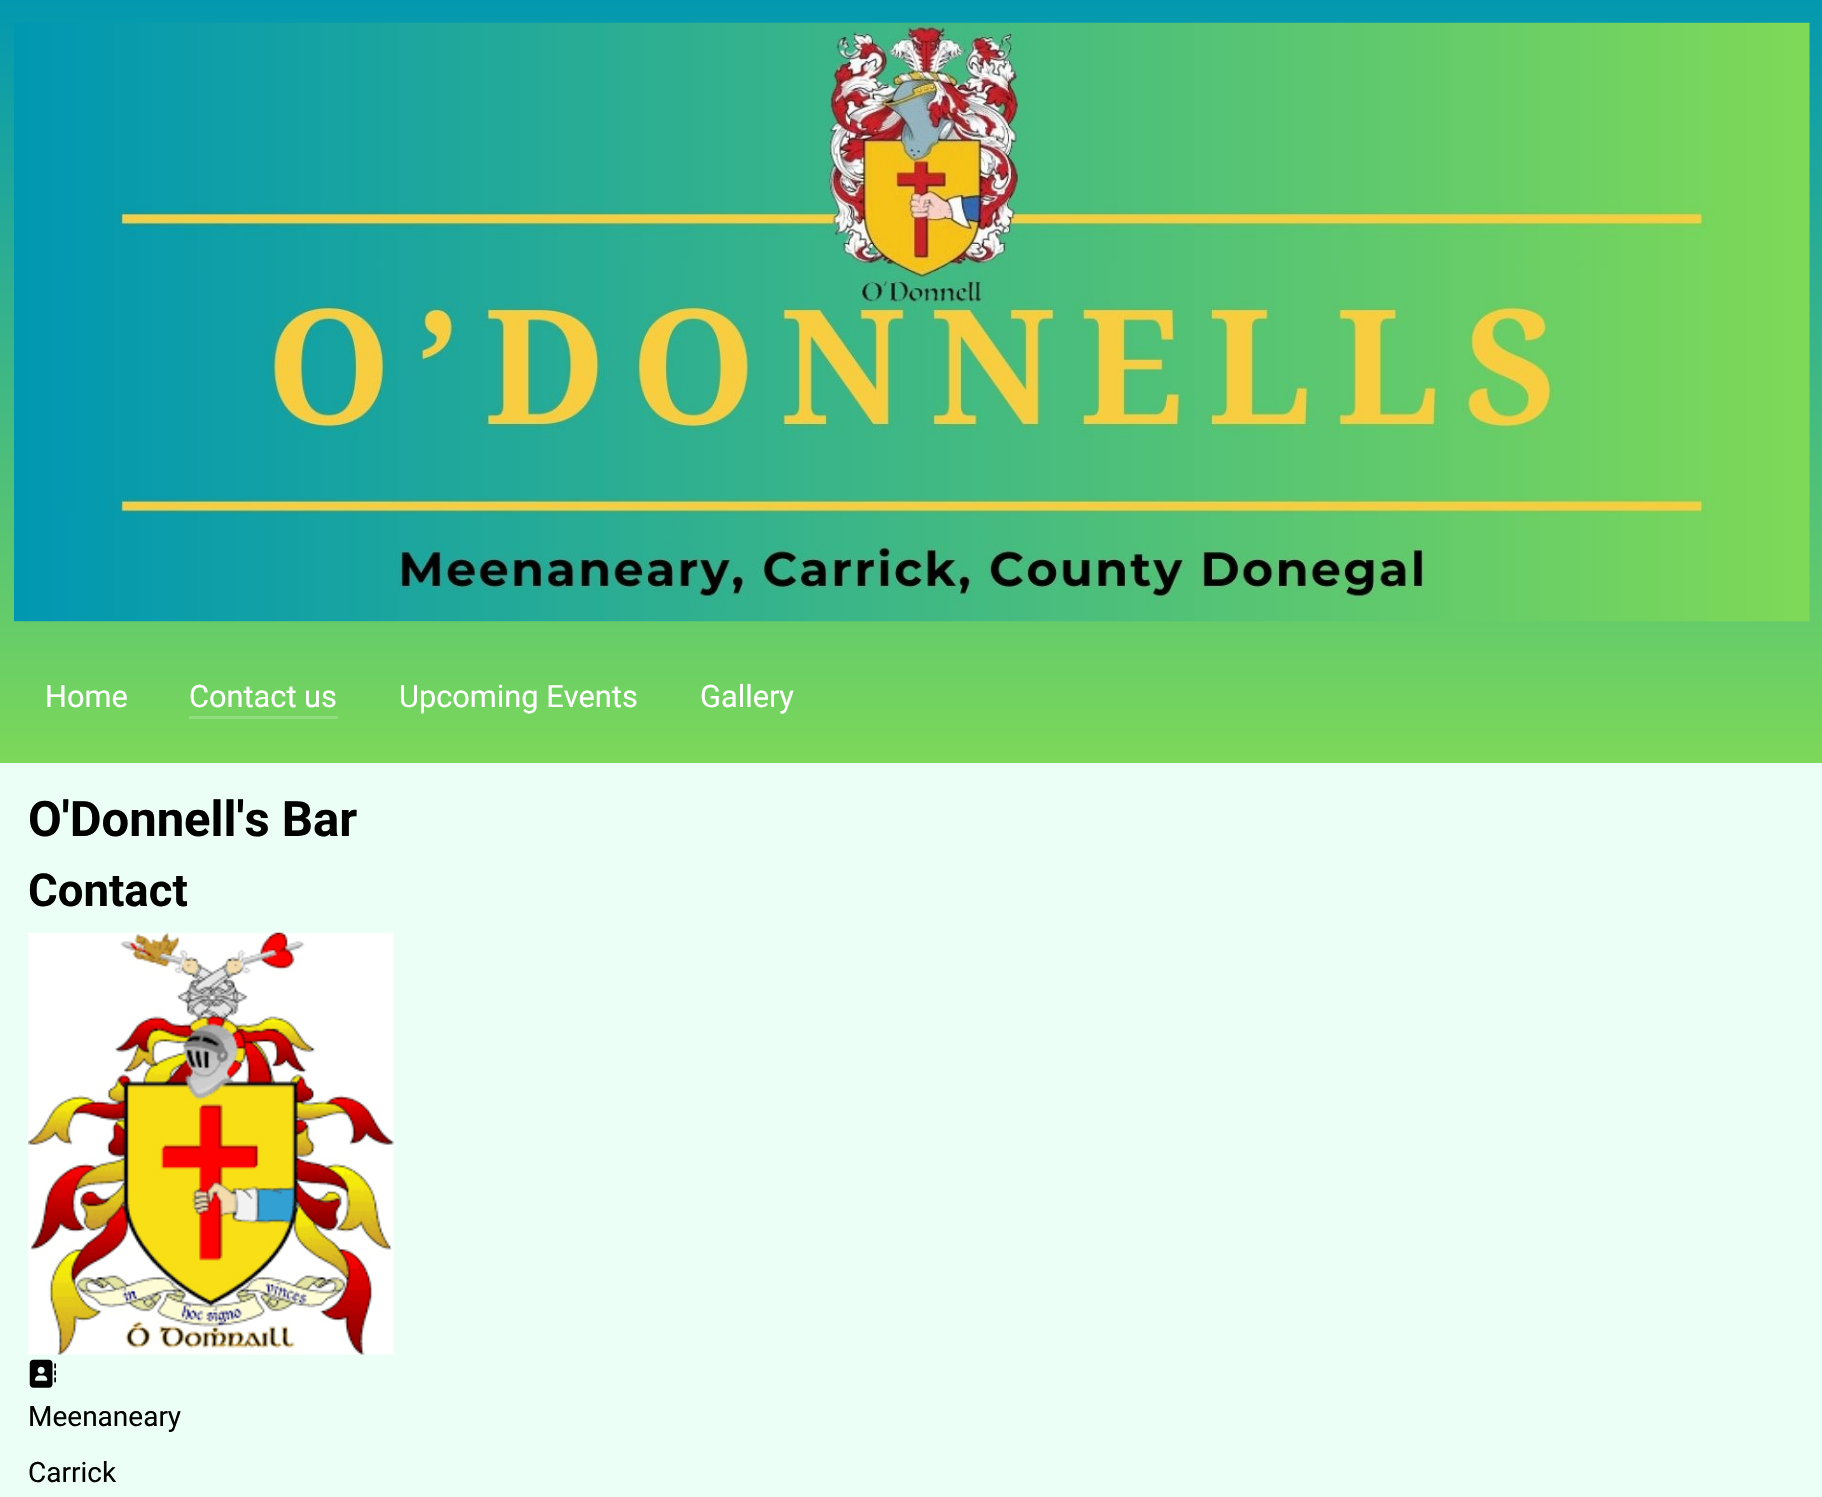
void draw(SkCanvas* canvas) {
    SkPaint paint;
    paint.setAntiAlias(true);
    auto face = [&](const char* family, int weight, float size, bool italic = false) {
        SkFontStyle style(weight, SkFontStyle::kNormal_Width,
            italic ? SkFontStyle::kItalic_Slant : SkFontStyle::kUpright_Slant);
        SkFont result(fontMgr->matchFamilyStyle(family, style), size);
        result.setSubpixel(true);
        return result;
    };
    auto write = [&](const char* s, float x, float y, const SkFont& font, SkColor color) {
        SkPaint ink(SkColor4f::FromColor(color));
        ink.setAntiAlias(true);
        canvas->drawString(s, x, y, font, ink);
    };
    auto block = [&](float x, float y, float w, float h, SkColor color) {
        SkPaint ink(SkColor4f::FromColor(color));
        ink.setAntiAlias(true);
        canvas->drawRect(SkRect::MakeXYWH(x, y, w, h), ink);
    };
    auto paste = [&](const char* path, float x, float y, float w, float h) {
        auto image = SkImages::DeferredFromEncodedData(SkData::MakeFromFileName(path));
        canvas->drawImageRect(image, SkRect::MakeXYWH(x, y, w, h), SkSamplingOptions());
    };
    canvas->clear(SkColorSetRGB(235, 255, 247));
    {
        const SkColor colors[] = {SkColorSetRGB(3, 152, 176), SkColorSetRGB(124, 216, 89)};
        const float stops[] = {0, 1};
        const SkPoint ends[] = {{912, 0}, {912, 763}};
        paint.setShader(SkGradientShader::MakeLinear(ends, colors, stops, 2, SkTileMode::kClamp));
        paint.setAlpha(255);
    }
    canvas->drawRect(SkRect::MakeXYWH(0, 0, 1822, 763), paint);
    paste("pic1.png", 14, 22, 1796, 600);
    auto kFont1 = face("Roboto", 400, 30.75f);
    write("Home", 45, 707, kFont1, SK_ColorWHITE);
    write("Contact us", 189, 707, kFont1, SK_ColorWHITE);
    block(189, 716, 149, 3, SkColorSetRGB(145, 221, 126));
    write("Upcoming Events", 399, 707, kFont1, SK_ColorWHITE);
    write("Gallery", 700, 707, kFont1, SK_ColorWHITE);
    auto kFont2 = face("Roboto", 700, 49);
    write("O'Donnell's Bar", 28, 836, kFont2, SK_ColorBLACK);
    auto kFont3 = face("Roboto", 700, 45.5f);
    write("Contact", 28, 906, kFont3, SK_ColorBLACK);
    paste("pic2.png", 28, 932, 366, 423);
    paste("pic3.png", 29, 1359, 27, 29);
    auto kFont4 = face("Roboto", 400, 28);
    write("Meenaneary", 28, 1426, kFont4, SK_ColorBLACK);
    write("Carrick", 28, 1482, kFont4, SK_ColorBLACK);
}
